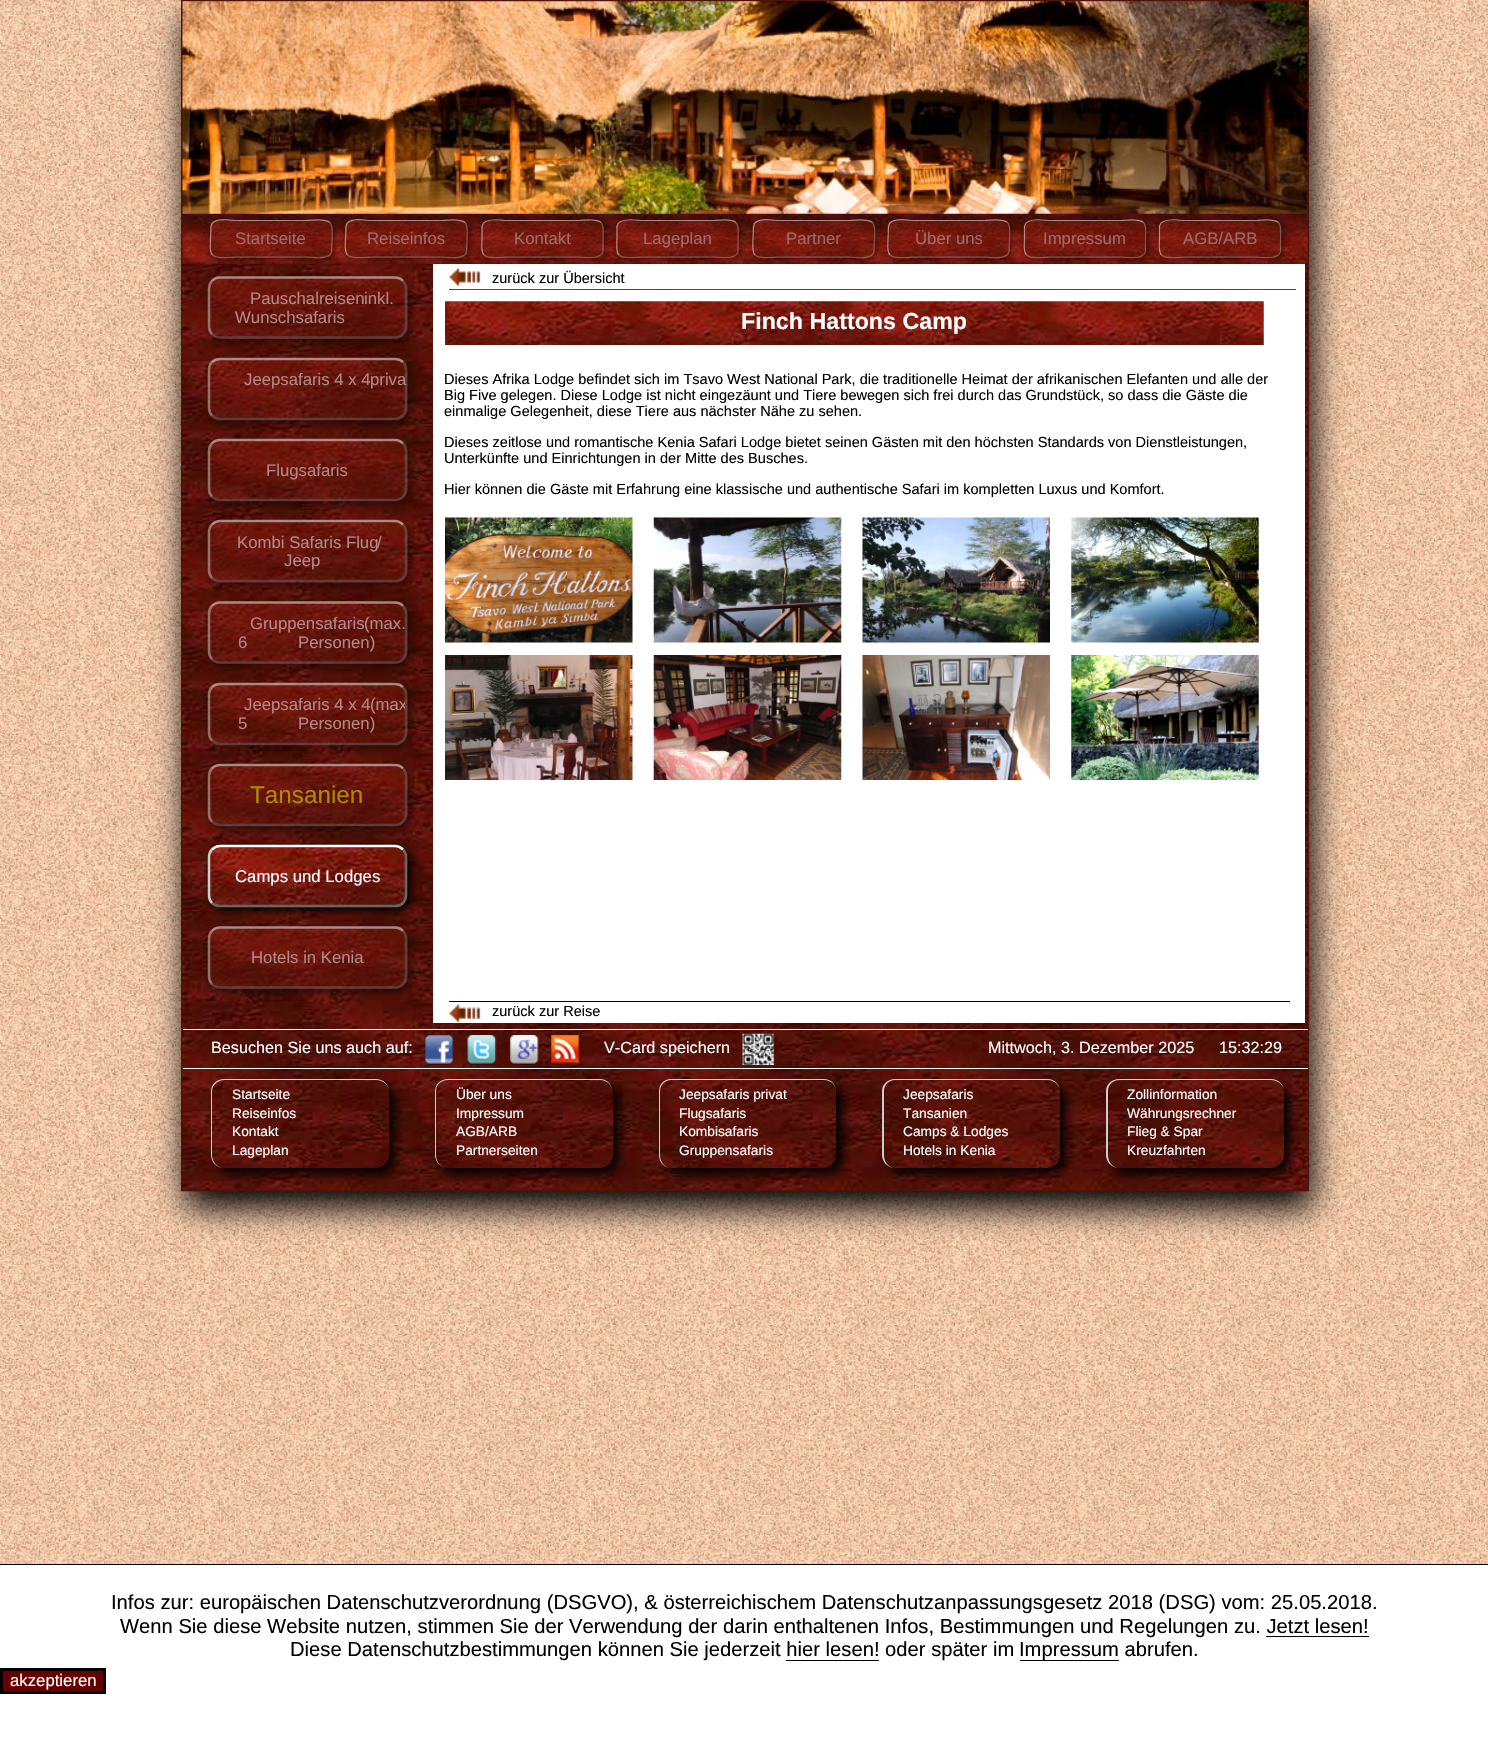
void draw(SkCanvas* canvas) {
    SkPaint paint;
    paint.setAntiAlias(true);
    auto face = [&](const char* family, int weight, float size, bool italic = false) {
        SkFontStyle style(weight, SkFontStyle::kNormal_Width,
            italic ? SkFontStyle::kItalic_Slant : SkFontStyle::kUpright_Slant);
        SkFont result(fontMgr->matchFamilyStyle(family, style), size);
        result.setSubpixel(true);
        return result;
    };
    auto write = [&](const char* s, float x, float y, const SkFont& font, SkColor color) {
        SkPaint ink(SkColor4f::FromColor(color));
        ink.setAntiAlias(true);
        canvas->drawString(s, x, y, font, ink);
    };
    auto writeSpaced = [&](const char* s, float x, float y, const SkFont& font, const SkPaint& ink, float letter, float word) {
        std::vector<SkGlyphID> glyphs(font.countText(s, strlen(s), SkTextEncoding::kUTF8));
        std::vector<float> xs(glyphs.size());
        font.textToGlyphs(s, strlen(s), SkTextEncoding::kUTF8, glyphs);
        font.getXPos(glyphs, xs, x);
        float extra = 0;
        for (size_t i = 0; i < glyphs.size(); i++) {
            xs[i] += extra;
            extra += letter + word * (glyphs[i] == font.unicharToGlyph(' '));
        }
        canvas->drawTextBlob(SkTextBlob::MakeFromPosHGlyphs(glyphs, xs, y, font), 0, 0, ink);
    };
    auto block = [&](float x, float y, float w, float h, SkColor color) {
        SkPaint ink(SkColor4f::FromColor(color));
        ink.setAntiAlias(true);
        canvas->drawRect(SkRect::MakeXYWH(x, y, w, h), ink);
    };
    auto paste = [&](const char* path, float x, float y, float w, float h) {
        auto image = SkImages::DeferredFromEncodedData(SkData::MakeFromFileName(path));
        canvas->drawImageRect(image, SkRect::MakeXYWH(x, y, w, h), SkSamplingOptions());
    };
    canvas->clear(SK_ColorWHITE);
    paste("pic1.png", 0, 0, 1488, 1564);
    paint.setColor(SK_ColorBLACK);
    paint.setMaskFilter(SkMaskFilter::MakeBlur(kNormal_SkBlurStyle, 15.5f));
    canvas->drawRect(SkRect::MakeXYWH(185, 16, 1128, 1192), paint);
    paint.setMaskFilter(nullptr);
    paste("pic2.png", 181, 1, 1128, 1191);
    paint.setStyle(SkPaint::kStroke_Style);
    paint.setStrokeWidth(1);
    paint.setColor(SkColorSetRGB(81, 18, 9));
    canvas->drawRect(SkRect::MakeXYWH(181.5f, 0.5f, 1127, 1190), paint);
    paste("pic4.png", 182, 213, 1126, 51);
    paste("pic3.png", 182, 1, 1126, 213);
    canvas->save();
    canvas->clipPath(SkPathBuilder(SkPathFillType::kEvenOdd).moveTo(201, 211).lineTo(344, 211).lineTo(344, 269).lineTo(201, 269).close().moveTo(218, 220).lineTo(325, 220).cubicTo(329.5f, 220, 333, 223.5f, 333, 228).lineTo(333, 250).cubicTo(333, 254.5f, 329.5f, 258, 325, 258).lineTo(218, 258).cubicTo(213.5f, 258, 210, 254.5f, 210, 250).lineTo(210, 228).cubicTo(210, 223.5f, 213.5f, 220, 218, 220).close().detach(), true);
    paint.setStyle(SkPaint::kFill_Style);
    paint.setColor(SkColorSetARGB(128, 0, 0, 0));
    paint.setMaskFilter(SkMaskFilter::MakeBlur(kNormal_SkBlurStyle, 3));
    canvas->drawRoundRect(SkRect::MakeXYWH(211, 221, 123, 38), 8, 8, paint);
    paint.setMaskFilter(nullptr);
    canvas->restore();
    paste("pic5.png", 210, 220, 122, 37);
    paint.setStyle(SkPaint::kStroke_Style);
    paint.setStrokeWidth(1.2f);
    paint.setColor(SkColorSetARGB(128, 153, 153, 153));
    canvas->drawPath(SkPathBuilder().moveTo(330, 222.5f).cubicTo(333.5f, 226, 332, 234.5f, 332, 239).lineTo(331.5f, 251.5f).cubicTo(330, 261, 310.5f, 257, 307, 257).lineTo(235.5f, 257).cubicTo(234.5f, 257, 217.5f, 259.5f, 212.5f, 255).detach(), paint);
    paint.setColor(SkColorSetARGB(128, 255, 255, 255));
    canvas->drawPath(SkPathBuilder().moveTo(212.5f, 255).cubicTo(209, 251.5f, 210.5f, 243, 210.5f, 239).lineTo(211, 226).cubicTo(212.5f, 216.5f, 232, 220.5f, 235.5f, 220.5f).lineTo(307, 220.5f).cubicTo(308, 220.5f, 325, 218, 330, 222.5f).detach(), paint);
    auto kFont1 = face("Liberation Sans", 400, 16.75f);
    write("Startseite", 235, 244, kFont1, SkColorSetRGB(158, 109, 104));
    block(433, 264, 872, 759, SK_ColorWHITE);
    canvas->save();
    canvas->clipPath(SkPathBuilder(SkPathFillType::kEvenOdd).moveTo(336, 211).lineTo(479, 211).lineTo(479, 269).lineTo(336, 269).close().moveTo(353, 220).lineTo(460, 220).cubicTo(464.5f, 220, 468, 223.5f, 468, 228).lineTo(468, 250).cubicTo(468, 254.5f, 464.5f, 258, 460, 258).lineTo(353, 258).cubicTo(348.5f, 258, 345, 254.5f, 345, 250).lineTo(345, 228).cubicTo(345, 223.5f, 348.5f, 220, 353, 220).close().detach(), true);
    paint.setStyle(SkPaint::kFill_Style);
    paint.setColor(SkColorSetARGB(128, 0, 0, 0));
    paint.setMaskFilter(SkMaskFilter::MakeBlur(kNormal_SkBlurStyle, 3));
    canvas->drawRoundRect(SkRect::MakeXYWH(346, 221, 123, 38), 8, 8, paint);
    paint.setMaskFilter(nullptr);
    canvas->restore();
    paste("pic6.png", 345, 220, 123, 38);
    paint.setStyle(SkPaint::kStroke_Style);
    paint.setColor(SkColorSetARGB(128, 153, 153, 153));
    canvas->drawPath(SkPathBuilder().moveTo(465, 222.5f).cubicTo(468.5f, 226, 467, 234.5f, 467, 239).lineTo(466.5f, 251.5f).cubicTo(465, 261, 445.5f, 257, 442, 257).lineTo(370.5f, 257).cubicTo(369.5f, 257, 352.5f, 259.5f, 347.5f, 255).detach(), paint);
    paint.setColor(SkColorSetARGB(128, 255, 255, 255));
    canvas->drawPath(SkPathBuilder().moveTo(347.5f, 255).cubicTo(344, 251.5f, 345.5f, 243, 345.5f, 239).lineTo(346, 226).cubicTo(347.5f, 216.5f, 367, 220.5f, 370.5f, 220.5f).lineTo(442, 220.5f).cubicTo(443, 220.5f, 460, 218, 465, 222.5f).detach(), paint);
    write("Reiseinfos", 367, 244, kFont1, SkColorSetRGB(158, 109, 104));
    canvas->save();
    canvas->clipPath(SkPathBuilder(SkPathFillType::kEvenOdd).moveTo(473, 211).lineTo(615, 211).lineTo(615, 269).lineTo(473, 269).close().moveTo(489, 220).lineTo(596, 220).cubicTo(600.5f, 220, 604, 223.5f, 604, 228).lineTo(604, 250).cubicTo(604, 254.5f, 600.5f, 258, 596, 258).lineTo(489, 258).cubicTo(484.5f, 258, 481, 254.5f, 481, 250).lineTo(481, 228).cubicTo(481, 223.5f, 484.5f, 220, 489, 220).close().detach(), true);
    paint.setStyle(SkPaint::kFill_Style);
    paint.setColor(SkColorSetARGB(128, 0, 0, 0));
    paint.setMaskFilter(SkMaskFilter::MakeBlur(kNormal_SkBlurStyle, 3));
    canvas->drawRoundRect(SkRect::MakeXYWH(483, 221, 122, 38), 8, 8, paint);
    paint.setMaskFilter(nullptr);
    canvas->restore();
    paste("pic7.png", 481, 220, 123, 38);
    paint.setStyle(SkPaint::kStroke_Style);
    paint.setColor(SkColorSetARGB(128, 153, 153, 153));
    canvas->drawPath(SkPathBuilder().moveTo(601, 222.5f).cubicTo(604.5f, 226, 603, 234.5f, 603, 239).lineTo(603, 251.5f).cubicTo(601, 261, 582, 257, 578.5f, 257).lineTo(506.5f, 257).cubicTo(505.5f, 257, 488.5f, 259.5f, 484, 255).detach(), paint);
    paint.setColor(SkColorSetARGB(128, 255, 255, 255));
    canvas->drawPath(SkPathBuilder().moveTo(484, 255).cubicTo(480.5f, 251.5f, 482, 243, 482, 239).lineTo(482, 226).cubicTo(484, 216.5f, 503, 220.5f, 506.5f, 220.5f).lineTo(578.5f, 220.5f).cubicTo(579.5f, 220.5f, 596.5f, 218, 601, 222.5f).detach(), paint);
    write("Kontakt", 514, 244, kFont1, SkColorSetRGB(158, 109, 104));
    canvas->save();
    canvas->clipPath(SkPathBuilder(SkPathFillType::kEvenOdd).moveTo(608, 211).lineTo(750, 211).lineTo(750, 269).lineTo(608, 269).close().moveTo(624, 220).lineTo(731, 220).cubicTo(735.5f, 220, 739, 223.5f, 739, 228).lineTo(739, 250).cubicTo(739, 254.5f, 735.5f, 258, 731, 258).lineTo(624, 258).cubicTo(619.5f, 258, 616, 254.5f, 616, 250).lineTo(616, 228).cubicTo(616, 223.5f, 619.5f, 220, 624, 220).close().detach(), true);
    paint.setStyle(SkPaint::kFill_Style);
    paint.setColor(SkColorSetARGB(128, 0, 0, 0));
    paint.setMaskFilter(SkMaskFilter::MakeBlur(kNormal_SkBlurStyle, 3));
    canvas->drawRoundRect(SkRect::MakeXYWH(618, 221, 122, 38), 8, 8, paint);
    paint.setMaskFilter(nullptr);
    canvas->restore();
    paste("pic8.png", 616, 220, 123, 38);
    paint.setStyle(SkPaint::kStroke_Style);
    paint.setColor(SkColorSetARGB(128, 153, 153, 153));
    canvas->drawPath(SkPathBuilder().moveTo(736, 222.5f).cubicTo(739.5f, 226, 738, 234.5f, 738, 239).lineTo(738, 251.5f).cubicTo(736, 261, 717, 257, 713.5f, 257).lineTo(641.5f, 257).cubicTo(640.5f, 257, 623.5f, 259.5f, 619, 255).detach(), paint);
    paint.setColor(SkColorSetARGB(128, 255, 255, 255));
    canvas->drawPath(SkPathBuilder().moveTo(619, 255).cubicTo(615.5f, 251.5f, 617, 243, 617, 239).lineTo(617, 226).cubicTo(619, 216.5f, 638, 220.5f, 641.5f, 220.5f).lineTo(713.5f, 220.5f).cubicTo(714.5f, 220.5f, 731.5f, 218, 736, 222.5f).detach(), paint);
    write("Lageplan", 643, 244, kFont1, SkColorSetRGB(158, 109, 104));
    canvas->save();
    canvas->clipPath(SkPathBuilder(SkPathFillType::kEvenOdd).moveTo(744, 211).lineTo(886, 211).lineTo(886, 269).lineTo(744, 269).close().moveTo(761, 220).lineTo(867, 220).cubicTo(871.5f, 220, 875, 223.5f, 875, 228).lineTo(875, 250).cubicTo(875, 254.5f, 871.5f, 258, 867, 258).lineTo(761, 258).cubicTo(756.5f, 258, 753, 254.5f, 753, 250).lineTo(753, 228).cubicTo(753, 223.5f, 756.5f, 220, 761, 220).close().detach(), true);
    paint.setStyle(SkPaint::kFill_Style);
    paint.setColor(SkColorSetARGB(128, 0, 0, 0));
    paint.setMaskFilter(SkMaskFilter::MakeBlur(kNormal_SkBlurStyle, 3));
    canvas->drawRoundRect(SkRect::MakeXYWH(754, 221, 122, 38), 8, 8, paint);
    paint.setMaskFilter(nullptr);
    canvas->restore();
    paste("pic9.png", 752, 220, 123, 38);
    paint.setStyle(SkPaint::kStroke_Style);
    paint.setColor(SkColorSetARGB(128, 153, 153, 153));
    canvas->drawPath(SkPathBuilder().moveTo(872.5f, 222.5f).cubicTo(876, 226, 874.5f, 234.5f, 874.5f, 239).lineTo(874, 251.5f).cubicTo(872.5f, 261, 853, 257, 849.5f, 257).lineTo(778, 257).cubicTo(777, 257, 760, 259.5f, 755, 255).detach(), paint);
    paint.setColor(SkColorSetARGB(128, 255, 255, 255));
    canvas->drawPath(SkPathBuilder().moveTo(755, 255).cubicTo(751.5f, 251.5f, 753, 243, 753, 239).lineTo(753.5f, 226).cubicTo(755, 216.5f, 774.5f, 220.5f, 778, 220.5f).lineTo(849.5f, 220.5f).cubicTo(850.5f, 220.5f, 867.5f, 218, 872.5f, 222.5f).detach(), paint);
    write("Partner", 786, 244, kFont1, SkColorSetRGB(158, 109, 104));
    canvas->save();
    canvas->clipPath(SkPathBuilder(SkPathFillType::kEvenOdd).moveTo(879, 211).lineTo(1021, 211).lineTo(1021, 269).lineTo(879, 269).close().moveTo(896, 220).lineTo(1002, 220).cubicTo(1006.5f, 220, 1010, 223.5f, 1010, 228).lineTo(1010, 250).cubicTo(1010, 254.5f, 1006.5f, 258, 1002, 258).lineTo(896, 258).cubicTo(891.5f, 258, 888, 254.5f, 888, 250).lineTo(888, 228).cubicTo(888, 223.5f, 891.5f, 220, 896, 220).close().detach(), true);
    paint.setStyle(SkPaint::kFill_Style);
    paint.setColor(SkColorSetARGB(128, 0, 0, 0));
    paint.setMaskFilter(SkMaskFilter::MakeBlur(kNormal_SkBlurStyle, 3));
    canvas->drawRoundRect(SkRect::MakeXYWH(889, 221, 122, 38), 8, 8, paint);
    paint.setMaskFilter(nullptr);
    canvas->restore();
    paste("pic10.png", 887, 220, 123, 37);
    paint.setStyle(SkPaint::kStroke_Style);
    paint.setColor(SkColorSetARGB(128, 153, 153, 153));
    canvas->drawPath(SkPathBuilder().moveTo(1007.5f, 222.5f).cubicTo(1011, 226, 1009.5f, 234.5f, 1009.5f, 239).lineTo(1009, 251.5f).cubicTo(1007.5f, 261, 988, 257, 984.5f, 257).lineTo(913, 257).cubicTo(912, 257, 895, 259.5f, 890, 255).detach(), paint);
    paint.setColor(SkColorSetARGB(128, 255, 255, 255));
    canvas->drawPath(SkPathBuilder().moveTo(890, 255).cubicTo(886.5f, 251.5f, 888, 243, 888, 239).lineTo(888.5f, 226).cubicTo(890, 216.5f, 909.5f, 220.5f, 913, 220.5f).lineTo(984.5f, 220.5f).cubicTo(985.5f, 220.5f, 1002.5f, 218, 1007.5f, 222.5f).detach(), paint);
    write("Über uns", 915, 244, kFont1, SkColorSetRGB(158, 109, 104));
    canvas->save();
    canvas->clipPath(SkPathBuilder(SkPathFillType::kEvenOdd).moveTo(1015, 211).lineTo(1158, 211).lineTo(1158, 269).lineTo(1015, 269).close().moveTo(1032, 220).lineTo(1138, 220).cubicTo(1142.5f, 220, 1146, 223.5f, 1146, 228).lineTo(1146, 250).cubicTo(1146, 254.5f, 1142.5f, 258, 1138, 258).lineTo(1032, 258).cubicTo(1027.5f, 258, 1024, 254.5f, 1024, 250).lineTo(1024, 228).cubicTo(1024, 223.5f, 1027.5f, 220, 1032, 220).close().detach(), true);
    paint.setStyle(SkPaint::kFill_Style);
    paint.setColor(SkColorSetARGB(128, 0, 0, 0));
    paint.setMaskFilter(SkMaskFilter::MakeBlur(kNormal_SkBlurStyle, 3));
    canvas->drawRoundRect(SkRect::MakeXYWH(1025, 221, 123, 38), 8, 8, paint);
    paint.setMaskFilter(nullptr);
    canvas->restore();
    paste("pic11.png", 1024, 220, 122, 37);
    paint.setStyle(SkPaint::kStroke_Style);
    paint.setColor(SkColorSetARGB(128, 153, 153, 153));
    canvas->drawPath(SkPathBuilder().moveTo(1143.5f, 222.5f).cubicTo(1147, 226, 1145.5f, 234.5f, 1145.5f, 239).lineTo(1145.5f, 251.5f).cubicTo(1143.5f, 261, 1124.5f, 257, 1121, 257).lineTo(1049, 257).cubicTo(1048, 257, 1031, 259.5f, 1026.5f, 255).detach(), paint);
    paint.setColor(SkColorSetARGB(128, 255, 255, 255));
    canvas->drawPath(SkPathBuilder().moveTo(1026.5f, 255).cubicTo(1023, 251.5f, 1024.5f, 243, 1024.5f, 239).lineTo(1024.5f, 226).cubicTo(1026.5f, 216.5f, 1045.5f, 220.5f, 1049, 220.5f).lineTo(1121, 220.5f).cubicTo(1122, 220.5f, 1139, 218, 1143.5f, 222.5f).detach(), paint);
    write("Impressum", 1043, 244, kFont1, SkColorSetRGB(158, 109, 104));
    canvas->save();
    canvas->clipPath(SkPathBuilder(SkPathFillType::kEvenOdd).moveTo(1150, 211).lineTo(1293, 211).lineTo(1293, 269).lineTo(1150, 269).close().moveTo(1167, 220).lineTo(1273, 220).cubicTo(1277.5f, 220, 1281, 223.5f, 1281, 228).lineTo(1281, 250).cubicTo(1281, 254.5f, 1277.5f, 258, 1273, 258).lineTo(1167, 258).cubicTo(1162.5f, 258, 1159, 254.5f, 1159, 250).lineTo(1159, 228).cubicTo(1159, 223.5f, 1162.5f, 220, 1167, 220).close().detach(), true);
    paint.setStyle(SkPaint::kFill_Style);
    paint.setColor(SkColorSetARGB(128, 0, 0, 0));
    paint.setMaskFilter(SkMaskFilter::MakeBlur(kNormal_SkBlurStyle, 3));
    canvas->drawRoundRect(SkRect::MakeXYWH(1160, 221, 123, 38), 8, 8, paint);
    paint.setMaskFilter(nullptr);
    canvas->restore();
    paste("pic12.png", 1159, 220, 122, 38);
    paint.setStyle(SkPaint::kStroke_Style);
    paint.setColor(SkColorSetARGB(128, 153, 153, 153));
    canvas->drawPath(SkPathBuilder().moveTo(1278.5f, 222.5f).cubicTo(1282, 226, 1280.5f, 234.5f, 1280.5f, 239).lineTo(1280.5f, 251.5f).cubicTo(1278.5f, 261, 1259.5f, 257, 1256, 257).lineTo(1184, 257).cubicTo(1183, 257, 1166, 259.5f, 1161.5f, 255).detach(), paint);
    paint.setColor(SkColorSetARGB(128, 255, 255, 255));
    canvas->drawPath(SkPathBuilder().moveTo(1161.5f, 255).cubicTo(1158, 251.5f, 1159.5f, 243, 1159.5f, 239).lineTo(1159.5f, 226).cubicTo(1161.5f, 216.5f, 1180.5f, 220.5f, 1184, 220.5f).lineTo(1256, 220.5f).cubicTo(1257, 220.5f, 1274, 218, 1278.5f, 222.5f).detach(), paint);
    write("AGB/ARB", 1183, 244, kFont1, SkColorSetRGB(158, 109, 104));
    canvas->save();
    canvas->clipPath(SkPathBuilder(SkPathFillType::kEvenOdd).moveTo(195, 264).lineTo(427, 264).lineTo(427, 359).lineTo(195, 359).close().moveTo(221, 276).lineTo(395, 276).cubicTo(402, 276, 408, 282, 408, 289).lineTo(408, 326).cubicTo(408, 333, 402, 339, 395, 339).lineTo(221, 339).cubicTo(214, 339, 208, 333, 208, 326).lineTo(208, 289).cubicTo(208, 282, 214, 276, 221, 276).close().detach(), true);
    paint.setStyle(SkPaint::kFill_Style);
    paint.setColor(SkColorSetARGB(128, 0, 0, 0));
    paint.setMaskFilter(SkMaskFilter::MakeBlur(kNormal_SkBlurStyle, 5));
    canvas->drawRoundRect(SkRect::MakeXYWH(211, 280, 200, 63), 13, 13, paint);
    paint.setMaskFilter(nullptr);
    canvas->restore();
    paste("pic13.png", 207, 276, 201, 63);
    paint.setStyle(SkPaint::kStroke_Style);
    paint.setStrokeWidth(2.5f);
    paint.setColor(SkColorSetARGB(128, 255, 255, 255));
    canvas->drawPath(SkPathBuilder().moveTo(212, 281).cubicTo(214, 278.5f, 217, 277.5f, 220, 277.5f).lineTo(395, 277.5f).cubicTo(398, 277.5f, 401, 278.5f, 403, 281).detach(), paint);
    paint.setColor(SkColorSetARGB(128, 102, 102, 102));
    canvas->drawPath(SkPathBuilder().moveTo(403, 281).cubicTo(405, 283, 406, 286, 406, 289).lineTo(406, 326).cubicTo(406, 329, 405, 332, 403, 334).cubicTo(401, 336.5f, 398, 337.5f, 395, 337.5f).lineTo(220, 337.5f).cubicTo(217, 337.5f, 214, 336.5f, 212, 334).detach(), paint);
    paint.setColor(SkColorSetARGB(128, 204, 204, 204));
    canvas->drawPath(SkPathBuilder().moveTo(212, 334).cubicTo(210, 332, 209, 329, 209, 326).lineTo(209, 289).cubicTo(209, 286, 210, 283, 212, 281).detach(), paint);
    write("Pauschalreisen", 250, 304, kFont1, SkColorSetRGB(178, 137, 133));
    write("inkl.", 364, 304, kFont1, SkColorSetRGB(178, 137, 133));
    write("Wunschsafaris", 235, 323, kFont1, SkColorSetRGB(178, 137, 133));
    canvas->save();
    canvas->clipPath(SkPathBuilder(SkPathFillType::kEvenOdd).moveTo(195, 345).lineTo(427, 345).lineTo(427, 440).lineTo(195, 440).close().moveTo(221, 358).lineTo(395, 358).cubicTo(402, 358, 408, 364, 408, 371).lineTo(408, 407).cubicTo(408, 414, 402, 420, 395, 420).lineTo(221, 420).cubicTo(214, 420, 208, 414, 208, 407).lineTo(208, 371).cubicTo(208, 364, 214, 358, 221, 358).close().detach(), true);
    paint.setStyle(SkPaint::kFill_Style);
    paint.setColor(SkColorSetARGB(128, 0, 0, 0));
    paint.setMaskFilter(SkMaskFilter::MakeBlur(kNormal_SkBlurStyle, 5));
    canvas->drawRoundRect(SkRect::MakeXYWH(211, 361, 200, 63), 13, 13, paint);
    paint.setMaskFilter(nullptr);
    canvas->restore();
    paste("pic14.png", 207, 357, 201, 63);
    paint.setStyle(SkPaint::kStroke_Style);
    paint.setColor(SkColorSetARGB(128, 255, 255, 255));
    canvas->drawPath(SkPathBuilder().moveTo(212, 362).cubicTo(214, 360, 217, 359, 220, 359).lineTo(395, 359).cubicTo(398, 359, 401, 360, 403, 362).detach(), paint);
    paint.setColor(SkColorSetARGB(128, 102, 102, 102));
    canvas->drawPath(SkPathBuilder().moveTo(403, 362).cubicTo(405, 364, 406, 367, 406, 370).lineTo(406, 407.5f).cubicTo(406, 410.5f, 405, 413.5f, 403, 415.5f).cubicTo(401, 417.5f, 398, 419, 395, 419).lineTo(220, 419).cubicTo(217, 419, 214, 417.5f, 212, 415.5f).detach(), paint);
    paint.setColor(SkColorSetARGB(128, 204, 204, 204));
    canvas->drawPath(SkPathBuilder().moveTo(212, 415.5f).cubicTo(210, 413.5f, 209, 410.5f, 209, 407.5f).lineTo(209, 370).cubicTo(209, 367, 210, 364, 212, 362).detach(), paint);
    write("Jeepsafaris 4 x 4", 244, 385, kFont1, SkColorSetRGB(178, 137, 133));
    write("priva", 370, 385, kFont1, SkColorSetRGB(178, 137, 133));
    canvas->save();
    canvas->clipPath(SkPathBuilder(SkPathFillType::kEvenOdd).moveTo(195, 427).lineTo(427, 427).lineTo(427, 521).lineTo(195, 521).close().moveTo(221, 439).lineTo(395, 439).cubicTo(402, 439, 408, 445, 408, 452).lineTo(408, 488).cubicTo(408, 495, 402, 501, 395, 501).lineTo(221, 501).cubicTo(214, 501, 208, 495, 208, 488).lineTo(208, 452).cubicTo(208, 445, 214, 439, 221, 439).close().detach(), true);
    paint.setStyle(SkPaint::kFill_Style);
    paint.setColor(SkColorSetARGB(128, 0, 0, 0));
    paint.setMaskFilter(SkMaskFilter::MakeBlur(kNormal_SkBlurStyle, 5));
    canvas->drawRoundRect(SkRect::MakeXYWH(211, 443, 200, 62), 13, 13, paint);
    paint.setMaskFilter(nullptr);
    canvas->restore();
    paste("pic15.png", 207, 439, 201, 62);
    paint.setStyle(SkPaint::kStroke_Style);
    paint.setColor(SkColorSetARGB(128, 255, 255, 255));
    canvas->drawPath(SkPathBuilder().moveTo(212, 443.5f).cubicTo(214, 441, 217, 440, 220, 440).lineTo(395, 440).cubicTo(398, 440, 401, 441, 403, 443.5f).detach(), paint);
    paint.setColor(SkColorSetARGB(128, 102, 102, 102));
    canvas->drawPath(SkPathBuilder().moveTo(403, 443.5f).cubicTo(405, 445.5f, 406, 448.5f, 406, 451).lineTo(406, 489).cubicTo(406, 491.5f, 405, 494.5f, 403, 496.5f).cubicTo(401, 499, 398, 500, 395, 500).lineTo(220, 500).cubicTo(217, 500, 214, 499, 212, 496.5f).detach(), paint);
    paint.setColor(SkColorSetARGB(128, 204, 204, 204));
    canvas->drawPath(SkPathBuilder().moveTo(212, 496.5f).cubicTo(210, 494.5f, 209, 491.5f, 209, 489).lineTo(209, 451).cubicTo(209, 448.5f, 210, 445.5f, 212, 443.5f).detach(), paint);
    write("Flugsafaris", 266, 476, kFont1, SkColorSetRGB(178, 137, 133));
    canvas->save();
    canvas->clipPath(SkPathBuilder(SkPathFillType::kEvenOdd).moveTo(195, 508).lineTo(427, 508).lineTo(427, 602).lineTo(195, 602).close().moveTo(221, 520).lineTo(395, 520).cubicTo(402, 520, 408, 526, 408, 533).lineTo(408, 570).cubicTo(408, 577, 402, 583, 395, 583).lineTo(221, 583).cubicTo(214, 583, 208, 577, 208, 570).lineTo(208, 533).cubicTo(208, 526, 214, 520, 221, 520).close().detach(), true);
    paint.setStyle(SkPaint::kFill_Style);
    paint.setColor(SkColorSetARGB(128, 0, 0, 0));
    paint.setMaskFilter(SkMaskFilter::MakeBlur(kNormal_SkBlurStyle, 5));
    canvas->drawRoundRect(SkRect::MakeXYWH(211, 524, 200, 62), 13, 13, paint);
    paint.setMaskFilter(nullptr);
    canvas->restore();
    paste("pic16.png", 207, 520, 201, 63);
    paint.setStyle(SkPaint::kStroke_Style);
    paint.setColor(SkColorSetARGB(128, 255, 255, 255));
    canvas->drawPath(SkPathBuilder().moveTo(212, 524.5f).cubicTo(214, 522.5f, 217, 521, 220, 521).lineTo(395, 521).cubicTo(398, 521, 401, 522.5f, 403, 524.5f).detach(), paint);
    paint.setColor(SkColorSetARGB(128, 102, 102, 102));
    canvas->drawPath(SkPathBuilder().moveTo(403, 524.5f).cubicTo(405, 526.5f, 406, 529.5f, 406, 532.5f).lineTo(406, 570).cubicTo(406, 573, 405, 576, 403, 578).cubicTo(401, 580, 398, 581, 395, 581).lineTo(220, 581).cubicTo(217, 581, 214, 580, 212, 578).detach(), paint);
    paint.setColor(SkColorSetARGB(128, 204, 204, 204));
    canvas->drawPath(SkPathBuilder().moveTo(212, 578).cubicTo(210, 576, 209, 573, 209, 570).lineTo(209, 532.5f).cubicTo(209, 529.5f, 210, 526.5f, 212, 524.5f).detach(), paint);
    write("Kombi Safaris Flug", 237, 548, kFont1, SkColorSetRGB(178, 137, 133));
    write("/", 377, 548, kFont1, SkColorSetRGB(178, 137, 133));
    write("Jeep", 284, 566, kFont1, SkColorSetRGB(178, 137, 133));
    canvas->save();
    canvas->clipPath(SkPathBuilder(SkPathFillType::kEvenOdd).moveTo(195, 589).lineTo(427, 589).lineTo(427, 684).lineTo(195, 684).close().moveTo(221, 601).lineTo(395, 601).cubicTo(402, 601, 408, 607, 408, 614).lineTo(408, 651).cubicTo(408, 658, 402, 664, 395, 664).lineTo(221, 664).cubicTo(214, 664, 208, 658, 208, 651).lineTo(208, 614).cubicTo(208, 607, 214, 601, 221, 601).close().detach(), true);
    paint.setStyle(SkPaint::kFill_Style);
    paint.setColor(SkColorSetARGB(128, 0, 0, 0));
    paint.setMaskFilter(SkMaskFilter::MakeBlur(kNormal_SkBlurStyle, 5));
    canvas->drawRoundRect(SkRect::MakeXYWH(211, 605, 200, 63), 13, 13, paint);
    paint.setMaskFilter(nullptr);
    canvas->restore();
    paste("pic17.png", 207, 601, 201, 63);
    paint.setStyle(SkPaint::kStroke_Style);
    paint.setColor(SkColorSetARGB(128, 255, 255, 255));
    canvas->drawPath(SkPathBuilder().moveTo(212, 606).cubicTo(214, 603.5f, 217, 602.5f, 220, 602.5f).lineTo(395, 602.5f).cubicTo(398, 602.5f, 401, 603.5f, 403, 606).detach(), paint);
    paint.setColor(SkColorSetARGB(128, 102, 102, 102));
    canvas->drawPath(SkPathBuilder().moveTo(403, 606).cubicTo(405, 608, 406, 611, 406, 614).lineTo(406, 651).cubicTo(406, 654, 405, 657, 403, 659).cubicTo(401, 661.5f, 398, 662.5f, 395, 662.5f).lineTo(220, 662.5f).cubicTo(217, 662.5f, 214, 661.5f, 212, 659).detach(), paint);
    paint.setColor(SkColorSetARGB(128, 204, 204, 204));
    canvas->drawPath(SkPathBuilder().moveTo(212, 659).cubicTo(210, 657, 209, 654, 209, 651).lineTo(209, 614).cubicTo(209, 611, 210, 608, 212, 606).detach(), paint);
    write("Gruppensafaris", 250, 629, kFont1, SkColorSetRGB(178, 137, 133));
    write("(max.", 364, 629, kFont1, SkColorSetRGB(178, 137, 133));
    paint.setStyle(SkPaint::kFill_Style);
    paint.setColor(SkColorSetRGB(178, 137, 133));
    writeSpaced("6 Personen)", 238, 648, kFont1, paint, 0, 46);
    canvas->save();
    canvas->clipPath(SkPathBuilder(SkPathFillType::kEvenOdd).moveTo(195, 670).lineTo(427, 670).lineTo(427, 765).lineTo(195, 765).close().moveTo(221, 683).lineTo(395, 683).cubicTo(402, 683, 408, 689, 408, 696).lineTo(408, 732).cubicTo(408, 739, 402, 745, 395, 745).lineTo(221, 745).cubicTo(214, 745, 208, 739, 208, 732).lineTo(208, 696).cubicTo(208, 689, 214, 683, 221, 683).close().detach(), true);
    paint.setColor(SkColorSetARGB(128, 0, 0, 0));
    paint.setMaskFilter(SkMaskFilter::MakeBlur(kNormal_SkBlurStyle, 5));
    canvas->drawRoundRect(SkRect::MakeXYWH(211, 686, 200, 63), 13, 13, paint);
    paint.setMaskFilter(nullptr);
    canvas->restore();
    paste("pic18.png", 207, 682, 201, 63);
    paint.setStyle(SkPaint::kStroke_Style);
    paint.setColor(SkColorSetARGB(128, 255, 255, 255));
    canvas->drawPath(SkPathBuilder().moveTo(212, 687).cubicTo(214, 685, 217, 684, 220, 684).lineTo(395, 684).cubicTo(398, 684, 401, 685, 403, 687).detach(), paint);
    paint.setColor(SkColorSetARGB(128, 102, 102, 102));
    canvas->drawPath(SkPathBuilder().moveTo(403, 687).cubicTo(405, 689, 406, 692, 406, 695).lineTo(406, 732.5f).cubicTo(406, 735.5f, 405, 738.5f, 403, 740.5f).cubicTo(401, 742.5f, 398, 744, 395, 744).lineTo(220, 744).cubicTo(217, 744, 214, 742.5f, 212, 740.5f).detach(), paint);
    paint.setColor(SkColorSetARGB(128, 204, 204, 204));
    canvas->drawPath(SkPathBuilder().moveTo(212, 740.5f).cubicTo(210, 738.5f, 209, 735.5f, 209, 732.5f).lineTo(209, 695).cubicTo(209, 692, 210, 689, 212, 687).detach(), paint);
    write("Jeepsafaris 4 x 4", 244, 710, kFont1, SkColorSetRGB(178, 137, 133));
    canvas->save();
    canvas->clipPath(SkPathBuilder().moveTo(220, 685).lineTo(395, 685).cubicTo(400.5f, 685, 405, 689.5f, 405, 695).lineTo(405, 733).cubicTo(405, 738.5f, 400.5f, 743, 395, 743).lineTo(220, 743).cubicTo(214.5f, 743, 210, 738.5f, 210, 733).lineTo(210, 695).cubicTo(210, 689.5f, 214.5f, 685, 220, 685).close().detach(), true);
    write("(max", 370, 710, kFont1, SkColorSetRGB(178, 137, 133));
    canvas->restore();
    paint.setStyle(SkPaint::kFill_Style);
    paint.setColor(SkColorSetRGB(178, 137, 133));
    writeSpaced("5 Personen)", 238, 729, kFont1, paint, 0, 46);
    canvas->save();
    canvas->clipPath(SkPathBuilder(SkPathFillType::kEvenOdd).moveTo(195, 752).lineTo(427, 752).lineTo(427, 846).lineTo(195, 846).close().moveTo(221, 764).lineTo(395, 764).cubicTo(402, 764, 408, 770, 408, 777).lineTo(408, 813).cubicTo(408, 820, 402, 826, 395, 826).lineTo(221, 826).cubicTo(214, 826, 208, 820, 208, 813).lineTo(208, 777).cubicTo(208, 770, 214, 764, 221, 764).close().detach(), true);
    paint.setColor(SkColorSetARGB(128, 0, 0, 0));
    paint.setMaskFilter(SkMaskFilter::MakeBlur(kNormal_SkBlurStyle, 5));
    canvas->drawRoundRect(SkRect::MakeXYWH(211, 768, 200, 62), 13, 13, paint);
    paint.setMaskFilter(nullptr);
    canvas->restore();
    paste("pic19.png", 207, 764, 201, 62);
    paint.setStyle(SkPaint::kStroke_Style);
    paint.setColor(SkColorSetARGB(128, 255, 255, 255));
    canvas->drawPath(SkPathBuilder().moveTo(212, 768.5f).cubicTo(214, 766, 217, 765, 220, 765).lineTo(395, 765).cubicTo(398, 765, 401, 766, 403, 768.5f).detach(), paint);
    paint.setColor(SkColorSetARGB(128, 102, 102, 102));
    canvas->drawPath(SkPathBuilder().moveTo(403, 768.5f).cubicTo(405, 770.5f, 406, 773.5f, 406, 776).lineTo(406, 814).cubicTo(406, 816.5f, 405, 819.5f, 403, 821.5f).cubicTo(401, 824, 398, 825, 395, 825).lineTo(220, 825).cubicTo(217, 825, 214, 824, 212, 821.5f).detach(), paint);
    paint.setColor(SkColorSetARGB(128, 204, 204, 204));
    canvas->drawPath(SkPathBuilder().moveTo(212, 821.5f).cubicTo(210, 819.5f, 209, 816.5f, 209, 814).lineTo(209, 776).cubicTo(209, 773.5f, 210, 770.5f, 212, 768.5f).detach(), paint);
    auto kFont2 = face("Liberation Sans", 400, 24.25f);
    write("Tansanien", 250, 803, kFont2, SkColorSetRGB(177, 137, 5));
    paint.setStyle(SkPaint::kFill_Style);
    paint.setColor(SK_ColorBLACK);
    paint.setMaskFilter(SkMaskFilter::MakeBlur(kNormal_SkBlurStyle, 5));
    canvas->drawRoundRect(SkRect::MakeXYWH(211, 849, 200, 62), 13, 13, paint);
    paint.setMaskFilter(nullptr);
    paste("pic20.png", 207, 845, 201, 63);
    paint.setStyle(SkPaint::kStroke_Style);
    paint.setColor(SK_ColorWHITE);
    canvas->drawPath(SkPathBuilder().moveTo(212, 849.5f).cubicTo(214, 847.5f, 217, 846, 220, 846).lineTo(395, 846).cubicTo(398, 846, 401, 847.5f, 403, 849.5f).detach(), paint);
    paint.setColor(SkColorSetRGB(102, 102, 102));
    canvas->drawPath(SkPathBuilder().moveTo(403, 849.5f).cubicTo(405, 851.5f, 406, 854.5f, 406, 857.5f).lineTo(406, 895).cubicTo(406, 898, 405, 901, 403, 903).cubicTo(401, 905, 398, 906, 395, 906).lineTo(220, 906).cubicTo(217, 906, 214, 905, 212, 903).detach(), paint);
    paint.setColor(SkColorSetRGB(204, 204, 204));
    canvas->drawPath(SkPathBuilder().moveTo(212, 903).cubicTo(210, 901, 209, 898, 209, 895).lineTo(209, 857.5f).cubicTo(209, 854.5f, 210, 851.5f, 212, 849.5f).detach(), paint);
    write("Camps und Lodges", 235, 882, kFont1, SK_ColorWHITE);
    canvas->save();
    canvas->clipPath(SkPathBuilder(SkPathFillType::kEvenOdd).moveTo(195, 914).lineTo(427, 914).lineTo(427, 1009).lineTo(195, 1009).close().moveTo(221, 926).lineTo(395, 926).cubicTo(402, 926, 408, 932, 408, 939).lineTo(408, 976).cubicTo(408, 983, 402, 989, 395, 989).lineTo(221, 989).cubicTo(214, 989, 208, 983, 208, 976).lineTo(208, 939).cubicTo(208, 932, 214, 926, 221, 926).close().detach(), true);
    paint.setStyle(SkPaint::kFill_Style);
    paint.setColor(SkColorSetARGB(128, 0, 0, 0));
    paint.setMaskFilter(SkMaskFilter::MakeBlur(kNormal_SkBlurStyle, 5));
    canvas->drawRoundRect(SkRect::MakeXYWH(211, 930, 200, 63), 13, 13, paint);
    paint.setMaskFilter(nullptr);
    canvas->restore();
    paste("pic21.png", 207, 926, 201, 63);
    paint.setStyle(SkPaint::kStroke_Style);
    paint.setColor(SkColorSetARGB(128, 255, 255, 255));
    canvas->drawPath(SkPathBuilder().moveTo(212, 931).cubicTo(214, 928.5f, 217, 927.5f, 220, 927.5f).lineTo(395, 927.5f).cubicTo(398, 927.5f, 401, 928.5f, 403, 931).detach(), paint);
    paint.setColor(SkColorSetARGB(128, 102, 102, 102));
    canvas->drawPath(SkPathBuilder().moveTo(403, 931).cubicTo(405, 933, 406, 936, 406, 939).lineTo(406, 976).cubicTo(406, 979, 405, 982, 403, 984).cubicTo(401, 986.5f, 398, 987.5f, 395, 987.5f).lineTo(220, 987.5f).cubicTo(217, 987.5f, 214, 986.5f, 212, 984).detach(), paint);
    paint.setColor(SkColorSetARGB(128, 204, 204, 204));
    canvas->drawPath(SkPathBuilder().moveTo(212, 984).cubicTo(210, 982, 209, 979, 209, 976).lineTo(209, 939).cubicTo(209, 936, 210, 933, 212, 931).detach(), paint);
    write("Hotels in Kenia", 251, 963, kFont1, SkColorSetRGB(178, 137, 133));
    paste("pic22.png", 448, 267, 33, 20);
    block(449, 289, 847, 1, SkColorSetRGB(140, 50, 3));
    auto kFont3 = face("Liberation Sans", 400, 14.55f);
    write("zurück zur Übersicht", 492, 283, kFont3, SK_ColorBLACK);
    paste("pic23.png", 445, 301, 819, 44);
    auto kFont4 = face("Liberation Sans", 700, 23.25f);
    write("Finch Hattons Camp", 741, 329, kFont4, SK_ColorWHITE);
    write("Dieses Afrika Lodge befindet sich im Tsavo West National Park, die traditionelle Heimat der afrikanischen Elefanten und alle der", 444, 384, kFont3, SK_ColorBLACK);
    write("Big Five gelegen. Diese Lodge ist nicht eingezäunt und Tiere bewegen sich frei durch das Grundstück, so dass die Gäste die", 444, 400, kFont3, SK_ColorBLACK);
    write("einmalige Gelegenheit, diese Tiere aus nächster Nähe zu sehen.", 444, 416, kFont3, SK_ColorBLACK);
    write("Dieses zeitlose und romantische Kenia Safari Lodge bietet seinen Gästen mit den höchsten Standards von Dienstleistungen,", 444, 447, kFont3, SK_ColorBLACK);
    write("Unterkünfte und Einrichtungen in der Mitte des Busches.", 444, 463, kFont3, SK_ColorBLACK);
    write("Hier können die Gäste mit Erfahrung eine klassische und authentische Safari im kompletten Luxus und Komfort.", 444, 494, kFont3, SK_ColorBLACK);
    paste("pic24.png", 445, 517, 188, 126);
    paste("pic25.png", 653, 517, 189, 126);
    paste("pic26.png", 862, 517, 188, 126);
    paste("pic27.png", 1071, 517, 188, 126);
    paste("pic28.png", 445, 655, 188, 125);
    paste("pic29.png", 653, 655, 189, 125);
    paste("pic30.png", 862, 655, 188, 125);
    paste("pic31.png", 1071, 655, 188, 125);
    paste("pic32.png", 448, 1003, 33, 20);
    block(449, 1001, 841, 1, SK_ColorBLACK);
    write("zurück zur Reise", 492, 1016, kFont3, SK_ColorBLACK);
    block(183, 1029, 1125, 1, SK_ColorWHITE);
    auto kFont5 = face("Liberation Sans", 400, 16.2f);
    write("Besuchen Sie uns auch auf:", 211, 1053, kFont5, SK_ColorWHITE);
    paste("pic33.png", 424, 1035, 30, 30);
    paste("pic34.png", 466, 1035, 31, 30);
    paste("pic35.png", 509, 1035, 30, 30);
    paste("pic36.png", 551, 1035, 28, 28);
    write("V-Card speichern", 604, 1053, kFont5, SK_ColorWHITE);
    paste("pic37.png", 742, 1033, 32, 32);
    write("Mittwoch, 3. Dezember 2025", 988, 1053, kFont5, SK_ColorWHITE);
    write("15:32:29", 1219, 1053, kFont5, SK_ColorWHITE);
    block(183, 1068, 1125, 1, SK_ColorWHITE);
    canvas->save();
    canvas->clipPath(SkPathBuilder(SkPathFillType::kEvenOdd).moveTo(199, 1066).lineTo(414, 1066).lineTo(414, 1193).lineTo(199, 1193).close().moveTo(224, 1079).lineTo(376, 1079).cubicTo(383, 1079, 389, 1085, 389, 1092).lineTo(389, 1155).cubicTo(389, 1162, 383, 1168, 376, 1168).lineTo(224, 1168).cubicTo(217, 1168, 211, 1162, 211, 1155).lineTo(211, 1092).cubicTo(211, 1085, 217, 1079, 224, 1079).close().detach(), true);
    paint.setStyle(SkPaint::kFill_Style);
    paint.setColor(SK_ColorBLACK);
    paint.setMaskFilter(SkMaskFilter::MakeBlur(kNormal_SkBlurStyle, 6));
    canvas->drawRoundRect(SkRect::MakeXYWH(218, 1085, 177, 89), 13, 13, paint);
    paint.setMaskFilter(nullptr);
    canvas->restore();
    paint.setColor(SkColorSetRGB(204, 204, 204));
    canvas->drawPath(SkPathBuilder(SkPathFillType::kEvenOdd).moveTo(224, 1079).lineTo(376, 1079).cubicTo(383, 1079, 389, 1084, 389, 1091).lineTo(389, 1155).cubicTo(389, 1162, 383, 1168, 376, 1168).lineTo(224, 1168).cubicTo(217, 1168, 211, 1162, 211, 1155).lineTo(211, 1091).cubicTo(211, 1084, 217, 1079, 224, 1079).close().moveTo(224, 1080).lineTo(376, 1080).cubicTo(383, 1080, 389, 1085, 389, 1091).lineTo(389, 1155).cubicTo(389, 1162, 383, 1168, 376, 1168).lineTo(224, 1168).cubicTo(218, 1168, 212, 1162, 212, 1155).lineTo(212, 1091).cubicTo(212, 1085, 218, 1080, 224, 1080).close().detach(), paint);
    auto kFont6 = face("Liberation Sans", 400, 13.75f);
    write("Startseite", 232, 1099, kFont6, SK_ColorWHITE);
    write("Reiseinfos", 232, 1118, kFont6, SK_ColorWHITE);
    write("Kontakt", 232, 1136, kFont6, SK_ColorWHITE);
    write("Lageplan", 232, 1155, kFont6, SK_ColorWHITE);
    canvas->save();
    canvas->clipPath(SkPathBuilder(SkPathFillType::kEvenOdd).moveTo(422, 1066).lineTo(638, 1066).lineTo(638, 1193).lineTo(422, 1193).close().moveTo(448, 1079).lineTo(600, 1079).cubicTo(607, 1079, 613, 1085, 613, 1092).lineTo(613, 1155).cubicTo(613, 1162, 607, 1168, 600, 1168).lineTo(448, 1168).cubicTo(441, 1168, 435, 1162, 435, 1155).lineTo(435, 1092).cubicTo(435, 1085, 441, 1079, 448, 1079).close().detach(), true);
    paint.setColor(SK_ColorBLACK);
    paint.setMaskFilter(SkMaskFilter::MakeBlur(kNormal_SkBlurStyle, 6));
    canvas->drawRoundRect(SkRect::MakeXYWH(441, 1085, 178, 89), 13, 13, paint);
    paint.setMaskFilter(nullptr);
    canvas->restore();
    paint.setColor(SkColorSetRGB(204, 204, 204));
    canvas->drawPath(SkPathBuilder(SkPathFillType::kEvenOdd).moveTo(448, 1079).lineTo(600, 1079).cubicTo(607, 1079, 612, 1084, 612, 1091).lineTo(612, 1155).cubicTo(612, 1162, 607, 1168, 600, 1168).lineTo(448, 1168).cubicTo(441, 1168, 435, 1162, 435, 1155).lineTo(435, 1091).cubicTo(435, 1084, 441, 1079, 448, 1079).close().moveTo(448, 1080).lineTo(600, 1080).cubicTo(607, 1080, 612, 1085, 612, 1091).lineTo(612, 1155).cubicTo(612, 1162, 607, 1168, 600, 1168).lineTo(448, 1168).cubicTo(441, 1168, 436, 1162, 436, 1155).lineTo(436, 1091).cubicTo(436, 1085, 441, 1080, 448, 1080).close().detach(), paint);
    write("Über uns", 456, 1099, kFont6, SK_ColorWHITE);
    write("Impressum", 456, 1118, kFont6, SK_ColorWHITE);
    write("AGB/ARB", 456, 1136, kFont6, SK_ColorWHITE);
    write("Partnerseiten", 456, 1155, kFont6, SK_ColorWHITE);
    canvas->save();
    canvas->clipPath(SkPathBuilder(SkPathFillType::kEvenOdd).moveTo(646, 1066).lineTo(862, 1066).lineTo(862, 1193).lineTo(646, 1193).close().moveTo(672, 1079).lineTo(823, 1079).cubicTo(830, 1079, 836, 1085, 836, 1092).lineTo(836, 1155).cubicTo(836, 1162, 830, 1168, 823, 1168).lineTo(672, 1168).cubicTo(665, 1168, 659, 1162, 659, 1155).lineTo(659, 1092).cubicTo(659, 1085, 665, 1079, 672, 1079).close().detach(), true);
    paint.setColor(SK_ColorBLACK);
    paint.setMaskFilter(SkMaskFilter::MakeBlur(kNormal_SkBlurStyle, 6));
    canvas->drawRoundRect(SkRect::MakeXYWH(665, 1085, 178, 89), 13, 13, paint);
    paint.setMaskFilter(nullptr);
    canvas->restore();
    paint.setColor(SkColorSetRGB(204, 204, 204));
    canvas->drawPath(SkPathBuilder(SkPathFillType::kEvenOdd).moveTo(671, 1079).lineTo(824, 1079).cubicTo(831, 1079, 836, 1084, 836, 1091).lineTo(836, 1155).cubicTo(836, 1162, 831, 1168, 824, 1168).lineTo(671, 1168).cubicTo(664, 1168, 659, 1162, 659, 1155).lineTo(659, 1091).cubicTo(659, 1084, 664, 1079, 671, 1079).close().moveTo(671, 1080).lineTo(824, 1080).cubicTo(831, 1080, 836, 1085, 836, 1091).lineTo(836, 1155).cubicTo(836, 1162, 831, 1168, 824, 1168).lineTo(671, 1168).cubicTo(665, 1168, 660, 1162, 660, 1155).lineTo(660, 1091).cubicTo(660, 1085, 665, 1080, 671, 1080).close().detach(), paint);
    write("Jeepsafaris privat", 679, 1099, kFont6, SK_ColorWHITE);
    write("Flugsafaris", 679, 1118, kFont6, SK_ColorWHITE);
    write("Kombisafaris", 679, 1136, kFont6, SK_ColorWHITE);
    write("Gruppensafaris", 679, 1155, kFont6, SK_ColorWHITE);
    canvas->save();
    canvas->clipPath(SkPathBuilder(SkPathFillType::kEvenOdd).moveTo(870, 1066).lineTo(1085, 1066).lineTo(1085, 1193).lineTo(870, 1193).close().moveTo(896, 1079).lineTo(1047, 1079).cubicTo(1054, 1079, 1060, 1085, 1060, 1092).lineTo(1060, 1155).cubicTo(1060, 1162, 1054, 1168, 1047, 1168).lineTo(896, 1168).cubicTo(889, 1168, 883, 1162, 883, 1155).lineTo(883, 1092).cubicTo(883, 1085, 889, 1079, 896, 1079).close().detach(), true);
    paint.setColor(SK_ColorBLACK);
    paint.setMaskFilter(SkMaskFilter::MakeBlur(kNormal_SkBlurStyle, 6));
    canvas->drawRoundRect(SkRect::MakeXYWH(889, 1085, 177, 89), 13, 13, paint);
    paint.setMaskFilter(nullptr);
    canvas->restore();
    paint.setColor(SkColorSetRGB(204, 204, 204));
    canvas->drawPath(SkPathBuilder(SkPathFillType::kEvenOdd).moveTo(895, 1079).lineTo(1048, 1079).cubicTo(1054, 1079, 1060, 1084, 1060, 1091).lineTo(1060, 1155).cubicTo(1060, 1162, 1054, 1168, 1048, 1168).lineTo(895, 1168).cubicTo(888, 1168, 882, 1162, 882, 1155).lineTo(882, 1091).cubicTo(882, 1084, 888, 1079, 895, 1079).close().moveTo(895, 1080).lineTo(1048, 1080).cubicTo(1054, 1080, 1060, 1085, 1060, 1091).lineTo(1060, 1155).cubicTo(1060, 1162, 1054, 1168, 1048, 1168).lineTo(895, 1168).cubicTo(889, 1168, 884, 1162, 884, 1155).lineTo(884, 1091).cubicTo(884, 1085, 889, 1080, 895, 1080).close().detach(), paint);
    write("Jeepsafaris", 903, 1099, kFont6, SK_ColorWHITE);
    write("Tansanien", 903, 1118, kFont6, SK_ColorWHITE);
    write("Camps & Lodges", 903, 1136, kFont6, SK_ColorWHITE);
    write("Hotels in Kenia", 903, 1155, kFont6, SK_ColorWHITE);
    canvas->save();
    canvas->clipPath(SkPathBuilder(SkPathFillType::kEvenOdd).moveTo(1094, 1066).lineTo(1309, 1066).lineTo(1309, 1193).lineTo(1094, 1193).close().moveTo(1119, 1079).lineTo(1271, 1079).cubicTo(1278, 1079, 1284, 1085, 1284, 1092).lineTo(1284, 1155).cubicTo(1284, 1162, 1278, 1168, 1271, 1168).lineTo(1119, 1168).cubicTo(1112, 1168, 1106, 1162, 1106, 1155).lineTo(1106, 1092).cubicTo(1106, 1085, 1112, 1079, 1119, 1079).close().detach(), true);
    paint.setColor(SK_ColorBLACK);
    paint.setMaskFilter(SkMaskFilter::MakeBlur(kNormal_SkBlurStyle, 6));
    canvas->drawRoundRect(SkRect::MakeXYWH(1113, 1085, 177, 89), 13, 13, paint);
    paint.setMaskFilter(nullptr);
    canvas->restore();
    paint.setColor(SkColorSetRGB(204, 204, 204));
    canvas->drawPath(SkPathBuilder(SkPathFillType::kEvenOdd).moveTo(1119, 1079).lineTo(1271, 1079).cubicTo(1278, 1079, 1284, 1084, 1284, 1091).lineTo(1284, 1155).cubicTo(1284, 1162, 1278, 1168, 1271, 1168).lineTo(1119, 1168).cubicTo(1112, 1168, 1106, 1162, 1106, 1155).lineTo(1106, 1091).cubicTo(1106, 1084, 1112, 1079, 1119, 1079).close().moveTo(1119, 1080).lineTo(1271, 1080).cubicTo(1278, 1080, 1284, 1085, 1284, 1091).lineTo(1284, 1155).cubicTo(1284, 1162, 1278, 1168, 1271, 1168).lineTo(1119, 1168).cubicTo(1113, 1168, 1108, 1162, 1108, 1155).lineTo(1108, 1091).cubicTo(1108, 1085, 1113, 1080, 1119, 1080).close().detach(), paint);
    write("Zollinformation", 1127, 1099, kFont6, SK_ColorWHITE);
    write("Währungsrechner", 1127, 1118, kFont6, SK_ColorWHITE);
    write("Flieg & Spar", 1127, 1136, kFont6, SK_ColorWHITE);
    write("Kreuzfahrten", 1127, 1155, kFont6, SK_ColorWHITE);
    block(0, 1564, 1488, 1, SK_ColorBLACK);
    auto kFont7 = face("Liberation Sans", 400, 20.2f);
    write("Infos zur: europäischen Datenschutzverordnung (DSGVO), & österreichischem Datenschutzanpassungsgesetz 2018 (DSG) vom: 25.05.2018.", 111, 1609, kFont7, SK_ColorBLACK);
    write("Wenn Sie diese Website nutzen, stimmen Sie der Verwendung der darin enthaltenen Infos, Bestimmungen und Regelungen zu. Jetzt lesen!", 120, 1633, kFont7, SK_ColorBLACK);
    block(1266, 1636, 103, 1, SK_ColorBLACK);
    write("Diese Datenschutzbestimmungen können Sie jederzeit hier lesen! oder später im", 290, 1656, kFont7, SK_ColorBLACK);
    block(1020, 1660, 99, 1, SK_ColorBLACK);
    write("Impressum abrufen.", 1019, 1656, kFont7, SK_ColorBLACK);
    block(786, 1660, 93, 1, SK_ColorBLACK);
    paint.setColor(SkColorSetRGB(102, 0, 0));
    canvas->drawRect(SkRect::MakeXYWH(1.5f, 1669.5f, 103, 23), paint);
    paint.setStyle(SkPaint::kStroke_Style);
    paint.setStrokeWidth(3);
    paint.setColor(SK_ColorBLACK);
    canvas->drawRect(SkRect::MakeXYWH(1.5f, 1669.5f, 103, 23), paint);
    write("akzeptieren", 10, 1686, kFont1, SK_ColorWHITE);
}
